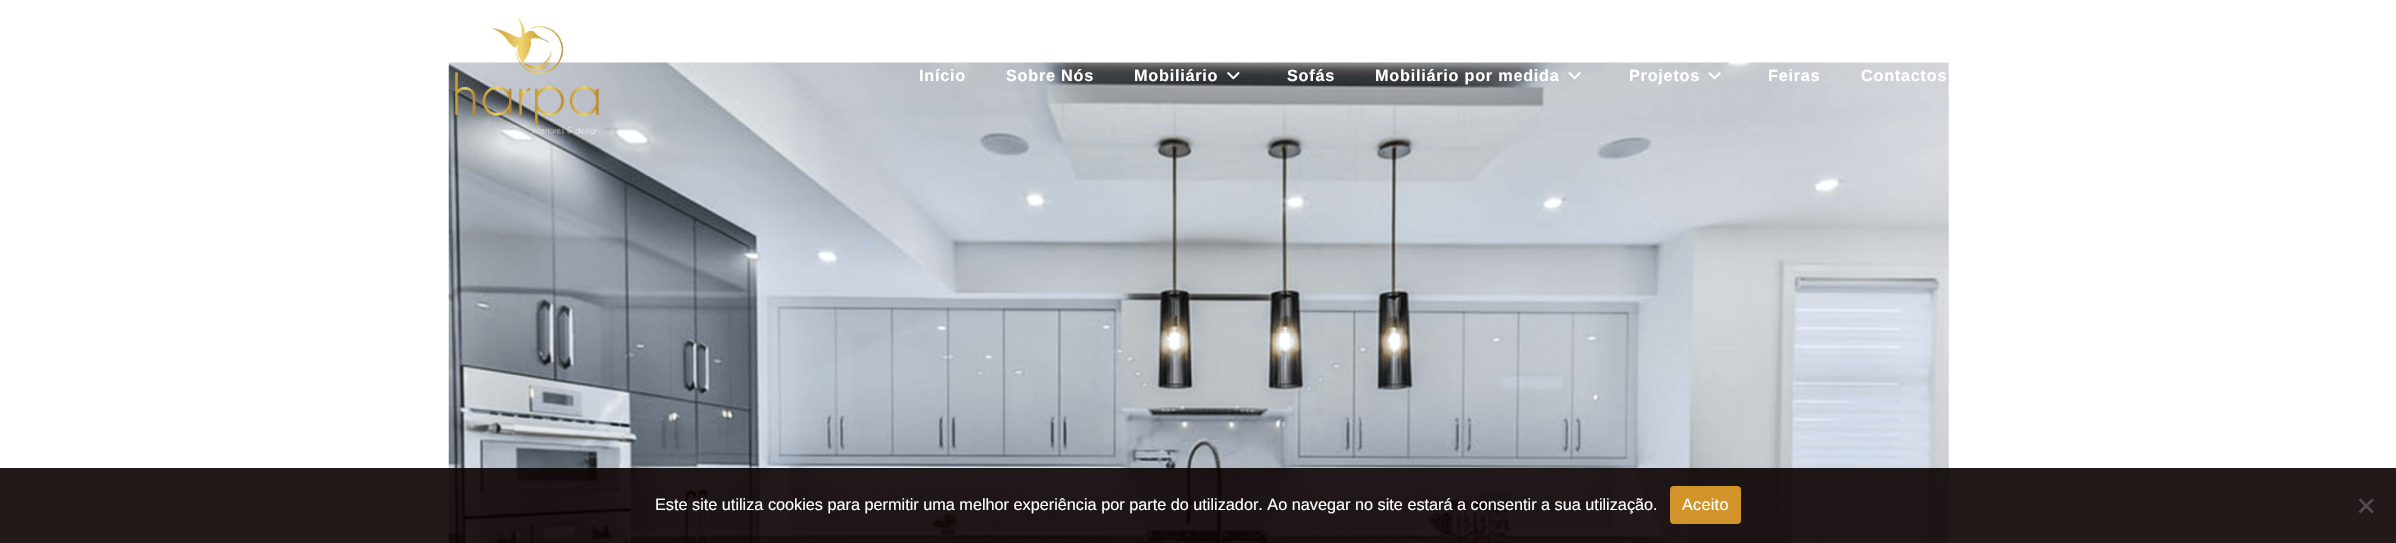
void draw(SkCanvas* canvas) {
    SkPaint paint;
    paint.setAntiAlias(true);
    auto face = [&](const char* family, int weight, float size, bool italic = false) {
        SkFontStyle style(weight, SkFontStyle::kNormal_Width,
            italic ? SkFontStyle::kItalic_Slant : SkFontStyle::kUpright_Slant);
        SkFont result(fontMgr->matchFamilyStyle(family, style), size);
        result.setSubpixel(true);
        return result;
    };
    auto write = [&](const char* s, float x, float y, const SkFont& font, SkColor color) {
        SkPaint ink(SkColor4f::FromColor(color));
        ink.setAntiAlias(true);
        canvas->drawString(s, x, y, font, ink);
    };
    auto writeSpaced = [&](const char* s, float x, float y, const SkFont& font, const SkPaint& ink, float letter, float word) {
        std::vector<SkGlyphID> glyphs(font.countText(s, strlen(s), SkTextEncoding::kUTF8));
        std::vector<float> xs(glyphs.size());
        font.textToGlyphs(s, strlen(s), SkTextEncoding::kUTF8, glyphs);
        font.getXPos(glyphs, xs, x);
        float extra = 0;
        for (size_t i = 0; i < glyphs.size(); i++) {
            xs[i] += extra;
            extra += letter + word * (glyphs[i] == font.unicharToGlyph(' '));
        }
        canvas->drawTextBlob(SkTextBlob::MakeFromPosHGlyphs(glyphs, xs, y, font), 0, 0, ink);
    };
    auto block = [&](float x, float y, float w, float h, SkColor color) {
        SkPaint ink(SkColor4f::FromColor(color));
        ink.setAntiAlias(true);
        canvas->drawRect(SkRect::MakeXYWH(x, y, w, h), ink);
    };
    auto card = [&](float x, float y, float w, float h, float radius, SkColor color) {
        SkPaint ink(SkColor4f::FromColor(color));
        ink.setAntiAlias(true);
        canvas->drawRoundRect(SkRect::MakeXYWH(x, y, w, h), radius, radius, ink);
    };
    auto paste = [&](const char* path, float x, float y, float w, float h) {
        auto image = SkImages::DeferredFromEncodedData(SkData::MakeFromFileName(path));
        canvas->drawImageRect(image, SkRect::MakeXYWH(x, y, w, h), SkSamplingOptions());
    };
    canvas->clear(SK_ColorWHITE);
    paste("pic1.png", 448, 62, 1501, 481);
    paste("pic2.png", 454, 18, 146, 117);
    auto kFont1 = face("Liberation Sans", 700, 16.25f);
    paint.setColor(SK_ColorWHITE);
    writeSpaced("Início", 919, 81, kFont1, paint, 0.75f, 0);
    writeSpaced("Sobre Nós", 1006, 81, kFont1, paint, 0.75f, 0);
    writeSpaced("Mobiliário", 1134, 81, kFont1, paint, 0.75f, 0);
    paste("pic3.png", 1227, 72, 13, 8);
    writeSpaced("Sofás", 1287, 81, kFont1, paint, 0.75f, 0);
    writeSpaced("Mobiliário por medida", 1375, 81, kFont1, paint, 0.75f, 0);
    paste("pic4.png", 1568, 72, 13, 8);
    writeSpaced("Projetos", 1629, 81, kFont1, paint, 0.75f, 0);
    paste("pic5.png", 1708, 72, 13, 8);
    writeSpaced("Feiras", 1768, 81, kFont1, paint, 0.75f, 0);
    writeSpaced("Contactos", 1861, 81, kFont1, paint, 0.75f, 0);
    block(0, 468, 2396, 75, SkColorSetARGB(230, 10, 0, 0));
    auto kFont2 = face("Liberation Sans", 400, 16.25f);
    write("Este site utiliza cookies para permitir uma melhor experiência por parte do utilizador. Ao navegar no site estará a consentir a sua utilização.", 655, 510, kFont2, SK_ColorWHITE);
    card(1670, 486, 71, 38, 4, SkColorSetRGB(209, 147, 42));
    writeSpaced("Aceito", 1682, 510, kFont2, paint, 0.25f, 0);
    paint.setColor(SkColorSetRGB(81, 77, 77));
    canvas->drawPath(SkPathBuilder().moveTo(2372, 498.5f).lineTo(2374, 500).lineTo(2360.5f, 513.5f).lineTo(2358.5f, 511.5f).close().detach(), paint);
    canvas->drawPath(SkPathBuilder().moveTo(2358.5f, 500).lineTo(2360.5f, 498.5f).lineTo(2374, 511.5f).lineTo(2372, 513.5f).close().detach(), paint);
}
